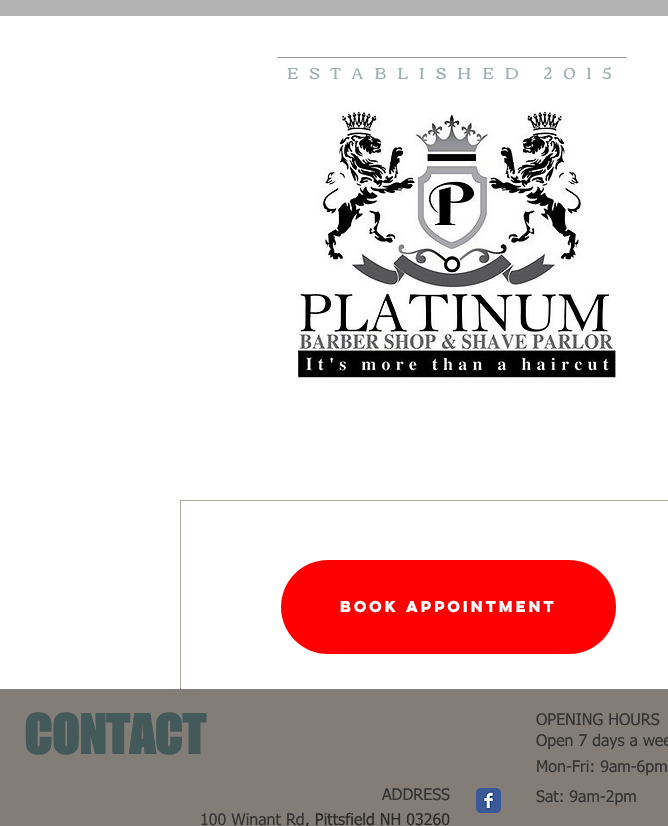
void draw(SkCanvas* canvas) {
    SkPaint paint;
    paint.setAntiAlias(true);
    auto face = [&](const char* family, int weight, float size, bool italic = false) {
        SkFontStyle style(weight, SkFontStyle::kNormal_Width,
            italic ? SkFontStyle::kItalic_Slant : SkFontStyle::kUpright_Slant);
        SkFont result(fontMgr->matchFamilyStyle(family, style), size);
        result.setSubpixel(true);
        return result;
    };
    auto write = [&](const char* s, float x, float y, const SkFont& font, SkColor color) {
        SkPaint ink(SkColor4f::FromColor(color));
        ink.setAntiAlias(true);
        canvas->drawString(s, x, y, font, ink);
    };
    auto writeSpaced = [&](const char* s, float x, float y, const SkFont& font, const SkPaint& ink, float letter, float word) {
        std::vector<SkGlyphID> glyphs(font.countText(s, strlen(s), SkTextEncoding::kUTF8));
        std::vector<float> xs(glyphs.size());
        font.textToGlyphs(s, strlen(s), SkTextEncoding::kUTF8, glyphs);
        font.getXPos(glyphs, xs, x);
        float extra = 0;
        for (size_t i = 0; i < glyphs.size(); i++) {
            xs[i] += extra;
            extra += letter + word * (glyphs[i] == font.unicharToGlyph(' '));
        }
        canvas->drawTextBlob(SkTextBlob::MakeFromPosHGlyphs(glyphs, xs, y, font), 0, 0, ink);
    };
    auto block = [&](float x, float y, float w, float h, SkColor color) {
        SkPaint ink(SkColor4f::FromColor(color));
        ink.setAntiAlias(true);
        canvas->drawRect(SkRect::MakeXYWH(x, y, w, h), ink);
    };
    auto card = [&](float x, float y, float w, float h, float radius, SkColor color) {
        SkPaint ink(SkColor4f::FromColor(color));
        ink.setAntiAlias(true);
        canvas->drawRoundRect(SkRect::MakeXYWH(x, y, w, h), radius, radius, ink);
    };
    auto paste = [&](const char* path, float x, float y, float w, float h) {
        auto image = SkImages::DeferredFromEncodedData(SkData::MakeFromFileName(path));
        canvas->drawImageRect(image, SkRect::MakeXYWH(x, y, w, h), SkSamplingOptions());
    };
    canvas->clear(SK_ColorWHITE);
    block(0, 0, 668, 16, SkColorSetRGB(179, 179, 179));
    block(277, 57, 350, 1, SkColorSetRGB(153, 153, 153));
    auto kFont1 = face("Corben", 400, 16);
    paint.setColor(SkColorSetRGB(154, 175, 175));
    writeSpaced("ESTABLISHED 2015", 287, 79, kFont1, paint, 11.25f, 0);
    paste("pic1.png", 296, 110, 321, 273);
    paint.setStyle(SkPaint::kStroke_Style);
    paint.setStrokeWidth(1);
    paint.setColor(SkColorSetRGB(173, 167, 159));
    canvas->drawRect(SkRect::MakeXYWH(180.5f, 500.5f, 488, 227), paint);
    card(281, 560, 335, 94, 47, SkColorSetRGB(255, 0, 0));
    auto kFont2 = face("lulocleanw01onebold", 700, 14);
    write("Book Appointment", 340, 612, kFont2, SK_ColorWHITE);
    block(0, 689, 668, 137, SkColorSetRGB(130, 125, 119));
    auto kFont3 = face("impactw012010", 700, 50);
    write("CONTACT", 24, 754, kFont3, SkColorSetRGB(68, 90, 90));
    auto kFont4 = face("tahoma", 400, 16);
    write("ADDRESS", 382, 800, kFont4, SkColorSetRGB(51, 51, 51));
    write("100 Winant Rd", 200, 825, kFont4, SkColorSetRGB(51, 51, 51));
    write(", Pittsfield NH 03260", 305, 825, kFont4, SkColorSetRGB(43, 41, 39));
    paste("pic2.png", 476, 788, 25, 25);
    write("OPENING HOURS", 536, 725, kFont4, SkColorSetRGB(51, 51, 51));
    write("Open 7 days a wee", 536, 746, kFont4, SkColorSetRGB(51, 51, 51));
    write("Mon-Fri: 9am-6pm", 536, 772, kFont4, SkColorSetRGB(51, 51, 51));
    write("Sat: 9am-2pm", 536, 802, kFont4, SkColorSetRGB(51, 51, 51));
}
